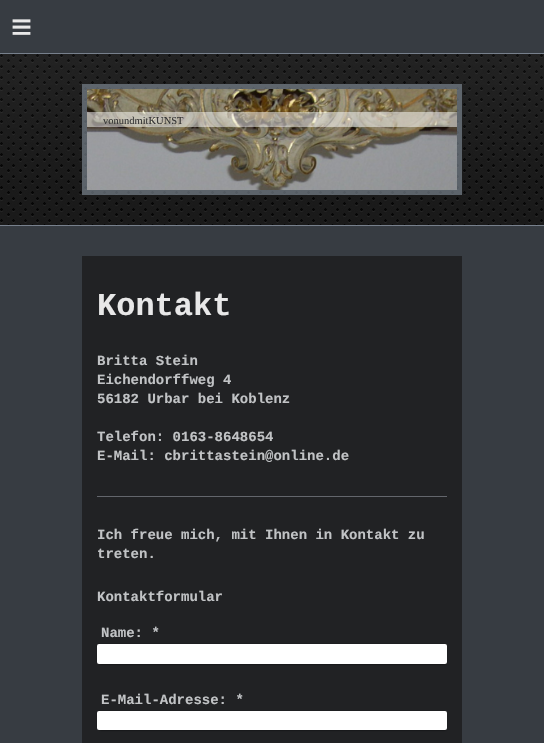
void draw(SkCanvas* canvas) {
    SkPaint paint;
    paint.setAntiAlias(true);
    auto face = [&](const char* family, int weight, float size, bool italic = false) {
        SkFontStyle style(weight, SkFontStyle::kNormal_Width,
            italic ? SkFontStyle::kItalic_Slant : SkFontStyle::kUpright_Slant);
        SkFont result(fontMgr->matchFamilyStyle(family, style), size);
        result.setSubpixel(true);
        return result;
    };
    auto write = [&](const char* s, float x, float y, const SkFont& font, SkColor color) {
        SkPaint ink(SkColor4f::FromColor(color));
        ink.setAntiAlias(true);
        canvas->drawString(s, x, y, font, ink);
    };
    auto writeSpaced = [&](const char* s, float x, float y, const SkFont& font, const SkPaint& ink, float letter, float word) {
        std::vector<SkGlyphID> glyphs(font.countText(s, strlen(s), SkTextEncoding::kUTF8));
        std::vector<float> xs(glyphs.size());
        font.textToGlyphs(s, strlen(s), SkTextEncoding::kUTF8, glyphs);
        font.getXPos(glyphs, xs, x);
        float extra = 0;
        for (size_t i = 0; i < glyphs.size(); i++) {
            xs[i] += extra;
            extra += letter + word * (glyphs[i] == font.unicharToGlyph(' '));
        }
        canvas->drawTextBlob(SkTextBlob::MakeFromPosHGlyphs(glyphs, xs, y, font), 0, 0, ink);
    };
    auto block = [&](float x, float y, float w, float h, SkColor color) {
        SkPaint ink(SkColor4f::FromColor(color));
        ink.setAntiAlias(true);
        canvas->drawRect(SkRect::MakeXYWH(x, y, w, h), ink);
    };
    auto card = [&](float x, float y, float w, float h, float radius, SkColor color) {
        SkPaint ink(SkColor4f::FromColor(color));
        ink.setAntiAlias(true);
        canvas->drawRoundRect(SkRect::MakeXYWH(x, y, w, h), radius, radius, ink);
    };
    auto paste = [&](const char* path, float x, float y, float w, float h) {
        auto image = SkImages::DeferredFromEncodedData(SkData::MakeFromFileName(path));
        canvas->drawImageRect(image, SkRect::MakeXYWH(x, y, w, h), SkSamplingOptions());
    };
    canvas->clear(SkColorSetRGB(55, 60, 66));
    auto kFont1 = face("Liberation Sans", 400, 36);
    paint.setColor(SkColorSetRGB(232, 232, 232));
    writeSpaced("≡", 11, 39, kFont1, paint, 10, 0);
    paste("pic1.png", 0, 54, 544, 171);
    block(0, 53, 544, 1, SkColorSetRGB(119, 128, 140));
    block(0, 225, 544, 1, SkColorSetRGB(119, 128, 140));
    paint.setStyle(SkPaint::kStroke_Style);
    paint.setStrokeWidth(5);
    paint.setColor(SkColorSetARGB(166, 126, 136, 148));
    canvas->drawRect(SkRect::MakeXYWH(84.5f, 86.5f, 375, 106), paint);
    paste("pic2.png", 87, 89, 370, 101);
    block(87, 112, 370, 15, SkColorSetARGB(128, 255, 255, 255));
    auto kFont2 = face("Liberation Serif", 400, 10.5f);
    write("vonundmitKUNST", 103, 124, kFont2, SkColorSetRGB(51, 51, 51));
    block(82, 256, 380, 487, SkColorSetRGB(33, 34, 36));
    auto kFont3 = face("Liberation Mono", 700, 32);
    write("Kontakt", 97, 315, kFont3, SkColorSetRGB(232, 232, 232));
    auto kFont4 = face("Liberation Mono", 700, 14);
    write("Britta Stein", 97, 365, kFont4, SkColorSetRGB(193, 195, 197));
    write("Eichendorffweg 4", 97, 384, kFont4, SkColorSetRGB(193, 195, 197));
    write("56182 Urbar bei Koblenz", 97, 403, kFont4, SkColorSetRGB(193, 195, 197));
    write("Telefon: 0163-8648654", 97, 441, kFont4, SkColorSetRGB(193, 195, 197));
    write("E-Mail: cbrittastein@online.de", 97, 460, kFont4, SkColorSetRGB(193, 195, 197));
    block(97, 496, 350, 1, SkColorSetRGB(99, 102, 108));
    write("Ich freue mich, mit Ihnen in Kontakt zu", 97, 539, kFont4, SkColorSetRGB(193, 195, 197));
    write("treten.", 97, 558, kFont4, SkColorSetRGB(193, 195, 197));
    write("Kontaktformular", 97, 601, kFont4, SkColorSetRGB(193, 195, 197));
    write("Name: *", 101, 637, kFont4, SkColorSetRGB(193, 195, 197));
    paint.setStyle(SkPaint::kFill_Style);
    paint.setColor(SkColorSetRGB(30, 31, 33));
    canvas->drawPath(SkPathBuilder().moveTo(98, 643).cubicTo(95, 643, 96, 651, 96, 653).cubicTo(96, 655, 95, 662, 97, 663).lineTo(97, 654).cubicTo(97, 652, 95, 644, 99, 644).lineTo(446, 644).lineTo(444, 643).close().detach(), paint);
    paint.setColor(SkColorSetARGB(204, 0, 0, 0));
    paint.setMaskFilter(SkMaskFilter::MakeBlur(kNormal_SkBlurStyle, 1));
    canvas->drawRect(SkRect::MakeXYWH(100, 648, 346, 16), paint);
    paint.setMaskFilter(nullptr);
    card(97, 644, 350, 20, 2, SK_ColorWHITE);
    write("E-Mail-Adresse: *", 101, 704, kFont4, SkColorSetRGB(193, 195, 197));
    paint.setColor(SkColorSetRGB(30, 31, 33));
    canvas->drawPath(SkPathBuilder().moveTo(98, 710).cubicTo(95, 710, 96, 718, 96, 720).cubicTo(96, 721, 95, 728, 97, 729).lineTo(97, 720).cubicTo(97, 719, 96, 711, 99, 711).lineTo(446, 711).lineTo(444, 710).close().detach(), paint);
    paint.setColor(SkColorSetARGB(204, 0, 0, 0));
    paint.setMaskFilter(SkMaskFilter::MakeBlur(kNormal_SkBlurStyle, 1));
    canvas->drawRect(SkRect::MakeXYWH(100, 715, 346, 15), paint);
    paint.setMaskFilter(nullptr);
    card(97, 711, 350, 19, 2, SK_ColorWHITE);
}
